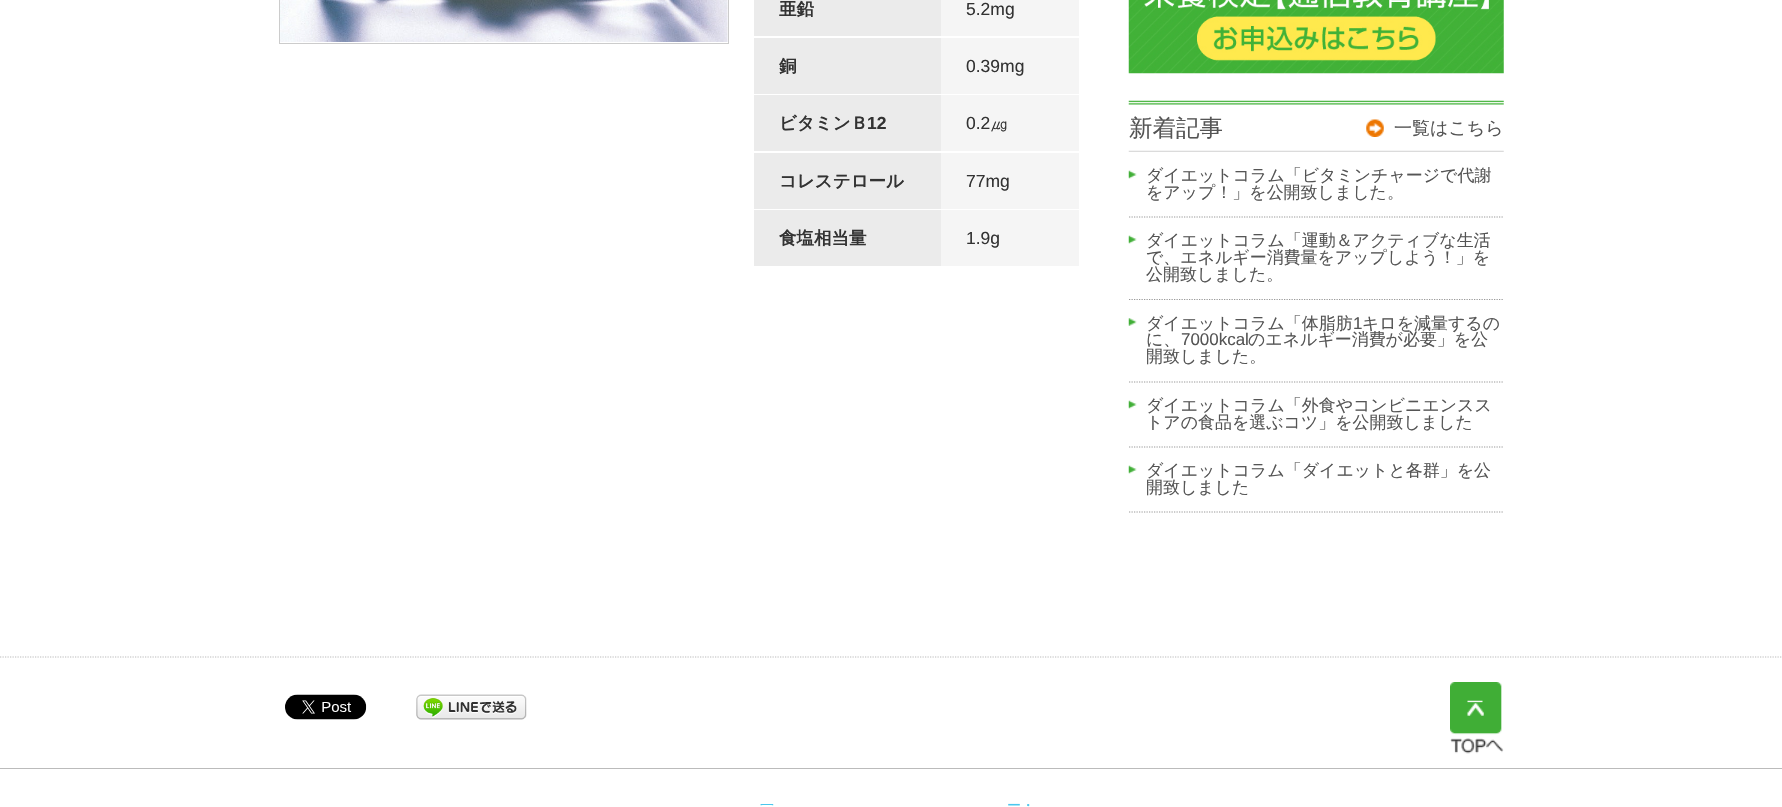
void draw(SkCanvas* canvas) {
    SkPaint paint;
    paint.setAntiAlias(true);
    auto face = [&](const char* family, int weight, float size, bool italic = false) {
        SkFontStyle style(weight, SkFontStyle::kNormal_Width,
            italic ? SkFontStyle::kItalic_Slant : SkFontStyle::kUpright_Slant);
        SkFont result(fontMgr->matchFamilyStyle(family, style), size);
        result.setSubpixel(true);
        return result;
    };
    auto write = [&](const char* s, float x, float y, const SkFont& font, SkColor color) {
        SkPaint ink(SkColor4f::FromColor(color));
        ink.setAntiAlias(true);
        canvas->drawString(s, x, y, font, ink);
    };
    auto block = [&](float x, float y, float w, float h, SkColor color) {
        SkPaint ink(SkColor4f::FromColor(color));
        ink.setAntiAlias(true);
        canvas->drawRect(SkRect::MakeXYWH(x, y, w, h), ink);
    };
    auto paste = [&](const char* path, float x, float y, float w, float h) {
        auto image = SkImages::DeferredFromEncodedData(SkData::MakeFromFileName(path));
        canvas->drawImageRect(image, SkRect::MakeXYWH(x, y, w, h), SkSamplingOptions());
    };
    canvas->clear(SK_ColorWHITE);
    paint.setStyle(SkPaint::kStroke_Style);
    paint.setStrokeWidth(1);
    paint.setColor(SkColorSetRGB(204, 204, 204));
    canvas->drawRect(SkRect::MakeXYWH(279.5f, -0.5f, 449, 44), paint);
    paste("pic1.png", 280, 0, 448, 42);
    block(754, 0, 187, 36, SkColorSetRGB(235, 235, 235));
    auto kFont1 = face("WenQuanYi Zen Hei", 700, 17.5f);
    write("亜鉛", 779, 15, kFont1, SkColorSetRGB(51, 51, 51));
    block(941, 0, 138, 36, SkColorSetRGB(245, 245, 245));
    auto kFont2 = face("Liberation Sans", 400, 17.5f);
    write("5.2mg", 966, 15, kFont2, SkColorSetRGB(51, 51, 51));
    block(754, 38, 187, 56, SkColorSetRGB(235, 235, 235));
    write("銅", 779, 72, kFont1, SkColorSetRGB(51, 51, 51));
    block(941, 38, 138, 56, SkColorSetRGB(245, 245, 245));
    write("0.39mg", 966, 72, kFont2, SkColorSetRGB(51, 51, 51));
    block(754, 95, 187, 56, SkColorSetRGB(235, 235, 235));
    write("ビタミンＢ", 779, 129, kFont1, SkColorSetRGB(51, 51, 51));
    auto kFont3 = face("Liberation Sans", 700, 17.5f);
    write("12", 867, 129, kFont3, SkColorSetRGB(51, 51, 51));
    block(941, 95, 138, 56, SkColorSetRGB(245, 245, 245));
    write("0.2", 966, 129, kFont2, SkColorSetRGB(51, 51, 51));
    auto kFont4 = face("WenQuanYi Zen Hei", 500, 17.5f);
    write("㎍", 990, 129, kFont4, SkColorSetRGB(51, 51, 51));
    block(754, 153, 187, 56, SkColorSetRGB(235, 235, 235));
    write("コレステロール", 779, 187, kFont1, SkColorSetRGB(51, 51, 51));
    block(941, 153, 138, 56, SkColorSetRGB(245, 245, 245));
    write("77mg", 966, 187, kFont2, SkColorSetRGB(51, 51, 51));
    block(754, 210, 187, 56, SkColorSetRGB(235, 235, 235));
    write("食塩相当量", 779, 244, kFont1, SkColorSetRGB(51, 51, 51));
    block(941, 210, 138, 56, SkColorSetRGB(245, 245, 245));
    write("1.9g", 966, 244, kFont2, SkColorSetRGB(51, 51, 51));
    paste("pic2.png", 1128, 0, 376, 74);
    paste("pic3.png", 1128, 100, 376, 52);
    auto kFont5 = face("WenQuanYi Zen Hei", 500, 23.5f);
    write("新着記事", 1129, 136, kFont5, SkColorSetRGB(85, 85, 85));
    paste("pic4.png", 1366, 119, 18, 18);
    auto kFont6 = face("WenQuanYi Zen Hei", 500, 18);
    write("一覧はこちら", 1394, 134, kFont6, SkColorSetRGB(85, 85, 85));
    paint.setStrokeWidth(1.2f);
    paint.setColor(SkColorSetRGB(153, 153, 153));
    paint.setPathEffect(SkDashPathEffect::Make({{1.25f, 1.25f}}, 0));
    canvas->drawPath(SkPathBuilder().moveTo(1129, 217).lineTo(1504, 217).detach(), paint);
    paint.setPathEffect(nullptr);
    paste("pic5.png", 1128, 170, 9, 9);
    auto kFont7 = face("WenQuanYi Zen Hei", 500, 16.95f);
    write("ダイエットコラム「ビタミンチャージで代謝", 1146, 181, kFont7, SkColorSetRGB(85, 85, 85));
    write("をアップ！」を公開致しました。", 1146, 198, kFont7, SkColorSetRGB(85, 85, 85));
    paint.setPathEffect(SkDashPathEffect::Make({{1.25f, 1.25f}}, 0));
    canvas->drawPath(SkPathBuilder().moveTo(1129, 299.5f).lineTo(1504, 299.5f).detach(), paint);
    paint.setPathEffect(nullptr);
    paste("pic5.png", 1128, 235, 9, 9);
    write("ダイエットコラム「運動＆アクティブな生活", 1146, 246, kFont7, SkColorSetRGB(85, 85, 85));
    write("で、エネルギー消費量をアップしよう！」を", 1146, 263, kFont7, SkColorSetRGB(85, 85, 85));
    write("公開致しました。", 1146, 280, kFont7, SkColorSetRGB(85, 85, 85));
    paint.setPathEffect(SkDashPathEffect::Make({{1.25f, 1.25f}}, 0));
    canvas->drawPath(SkPathBuilder().moveTo(1129, 382).lineTo(1504, 382).detach(), paint);
    paint.setPathEffect(nullptr);
    paste("pic6.png", 1128, 318, 9, 8);
    write("ダイエットコラム「体脂肪", 1146, 329, kFont7, SkColorSetRGB(85, 85, 85));
    auto kFont8 = face("Liberation Sans", 400, 16.95f);
    write("1", 1353, 329, kFont8, SkColorSetRGB(85, 85, 85));
    write("キロを減量するの", 1362, 329, kFont7, SkColorSetRGB(85, 85, 85));
    write("に、", 1146, 345, kFont7, SkColorSetRGB(85, 85, 85));
    write("7000kcal", 1181, 345, kFont8, SkColorSetRGB(85, 85, 85));
    write("のエネルギー消費が必要」を公", 1248, 345, kFont7, SkColorSetRGB(85, 85, 85));
    write("開致しました。", 1146, 362, kFont7, SkColorSetRGB(85, 85, 85));
    paint.setPathEffect(SkDashPathEffect::Make({{1.25f, 1.25f}}, 0));
    canvas->drawPath(SkPathBuilder().moveTo(1129, 447).lineTo(1504, 447).detach(), paint);
    paint.setPathEffect(nullptr);
    paste("pic5.png", 1128, 400, 9, 9);
    write("ダイエットコラム「外食やコンビニエンスス", 1146, 411, kFont7, SkColorSetRGB(85, 85, 85));
    write("トアの食品を選ぶコツ」を公開致しました", 1146, 428, kFont7, SkColorSetRGB(85, 85, 85));
    paint.setPathEffect(SkDashPathEffect::Make({{1.25f, 1.25f}}, 0));
    canvas->drawPath(SkPathBuilder().moveTo(1129, 512).lineTo(1504, 512).detach(), paint);
    paint.setPathEffect(nullptr);
    paste("pic5.png", 1128, 465, 9, 9);
    write("ダイエットコラム「ダイエットと各群」を公", 1146, 476, kFont7, SkColorSetRGB(85, 85, 85));
    write("開致しました", 1146, 493, kFont7, SkColorSetRGB(85, 85, 85));
    paint.setColor(SkColorSetRGB(187, 187, 187));
    paint.setPathEffect(SkDashPathEffect::Make({{1.25f, 1.25f}}, 0));
    canvas->drawPath(SkPathBuilder().moveTo(0, 657).lineTo(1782.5f, 657).detach(), paint);
    paint.setPathEffect(nullptr);
    paste("pic7.png", 285, 694, 82, 26);
    paste("pic8.png", 416, 694, 111, 26);
    paste("pic9.png", 1450, 682, 54, 72);
    block(0, 768, 1782, 1, SkColorSetRGB(187, 187, 187));
    auto kFont9 = face("WenQuanYi Zen Hei", 500, 14);
    write("一", 760, 810, kFont9, SkColorSetRGB(75, 199, 238));
    write("ー・", 1007, 810, kFont9, SkColorSetRGB(75, 199, 238));
}
